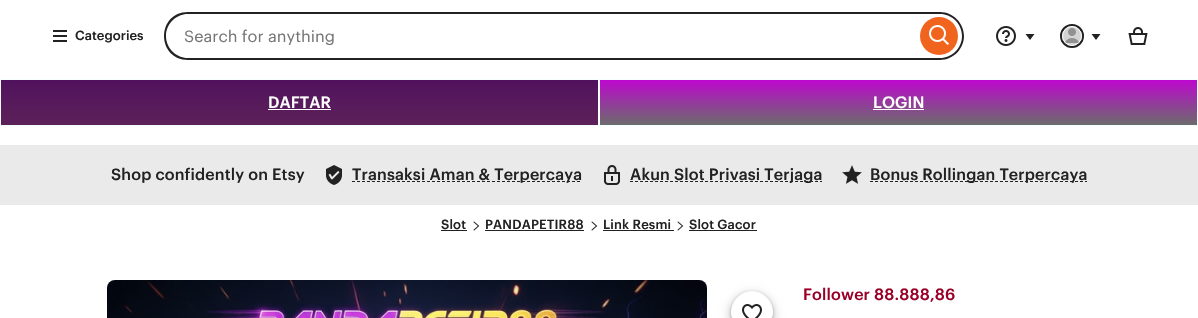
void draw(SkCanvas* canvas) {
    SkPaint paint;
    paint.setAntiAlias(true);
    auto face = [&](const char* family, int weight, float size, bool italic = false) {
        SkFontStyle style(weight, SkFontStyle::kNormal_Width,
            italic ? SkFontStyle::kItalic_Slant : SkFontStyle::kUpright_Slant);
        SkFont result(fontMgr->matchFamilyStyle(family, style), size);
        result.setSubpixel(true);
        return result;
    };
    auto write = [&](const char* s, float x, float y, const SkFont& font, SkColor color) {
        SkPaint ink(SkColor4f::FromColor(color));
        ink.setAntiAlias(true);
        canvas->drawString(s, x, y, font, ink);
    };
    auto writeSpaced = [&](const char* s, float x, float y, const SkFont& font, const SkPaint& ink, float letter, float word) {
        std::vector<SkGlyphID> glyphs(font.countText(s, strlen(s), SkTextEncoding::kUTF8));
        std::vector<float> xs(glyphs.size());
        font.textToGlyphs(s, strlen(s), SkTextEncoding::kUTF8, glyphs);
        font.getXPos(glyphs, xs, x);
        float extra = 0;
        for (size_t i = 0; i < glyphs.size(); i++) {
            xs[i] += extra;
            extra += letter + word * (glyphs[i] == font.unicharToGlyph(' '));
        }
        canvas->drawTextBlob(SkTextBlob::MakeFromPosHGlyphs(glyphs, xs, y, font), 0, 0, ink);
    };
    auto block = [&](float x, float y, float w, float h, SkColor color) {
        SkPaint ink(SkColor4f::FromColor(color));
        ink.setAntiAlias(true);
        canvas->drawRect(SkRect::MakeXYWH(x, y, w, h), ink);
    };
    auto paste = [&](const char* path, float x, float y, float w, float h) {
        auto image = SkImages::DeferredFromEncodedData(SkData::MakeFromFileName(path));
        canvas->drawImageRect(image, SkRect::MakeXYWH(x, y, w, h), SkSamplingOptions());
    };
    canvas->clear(SK_ColorWHITE);
    block(53, 35, 14, 2, SkColorSetRGB(34, 34, 34));
    block(53, 40, 14, 2, SkColorSetRGB(34, 34, 34));
    block(53, 30, 14, 2, SkColorSetRGB(34, 34, 34));
    auto kFont1 = face("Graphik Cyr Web", 500, 13);
    write("Categories", 75, 40, kFont1, SkColorSetRGB(34, 34, 34));
    paint.setColor(SkColorSetRGB(34, 34, 34));
    canvas->drawPath(SkPathBuilder(SkPathFillType::kEvenOdd).moveTo(188, 12).lineTo(915, 12).lineTo(915, 60).lineTo(188, 60).cubicTo(156, 60, 156, 12, 188, 12).close().moveTo(188, 14).lineTo(915, 14).lineTo(915, 58).lineTo(188, 58).cubicTo(176, 58, 166, 48, 166, 36).cubicTo(166, 24, 176, 14, 188, 14).close().detach(), paint);
    auto kFont2 = face("Graphik Cyr Web", 400, 16);
    write("Search for anything", 184, 42, kFont2, SkColorSetRGB(117, 117, 117));
    canvas->drawPath(SkPathBuilder(SkPathFillType::kEvenOdd).moveTo(915, 12).lineTo(940, 12).cubicTo(953, 12, 964, 23, 964, 36).cubicTo(964, 49, 953, 60, 940, 60).lineTo(915, 60).close().moveTo(915, 14).lineTo(940, 14).cubicTo(952, 14, 962, 24, 962, 36).cubicTo(962, 48, 952, 58, 940, 58).lineTo(915, 58).close().detach(), paint);
    paint.setColor(SkColorSetRGB(241, 100, 30));
    canvas->drawCircle(939, 36, 19, paint);
    paste("pic1.png", 929, 25, 20, 20);
    paste("pic2.png", 996, 26, 20, 20);
    paint.setColor(SkColorSetRGB(34, 34, 34));
    canvas->drawPath(SkPathBuilder().moveTo(1034.5f, 34).lineTo(1030, 40).lineTo(1025.5f, 34).close().detach(), paint);
    paste("pic3.png", 1060, 24, 24, 24);
    paint.setStyle(SkPaint::kStroke_Style);
    paint.setStrokeWidth(2);
    canvas->drawCircle(1072, 36, 11, paint);
    paint.setStrokeWidth(1);
    paint.setColor(SK_ColorWHITE);
    canvas->drawCircle(1072, 36, 9.5f, paint);
    paint.setStyle(SkPaint::kFill_Style);
    paint.setColor(SkColorSetRGB(34, 34, 34));
    canvas->drawPath(SkPathBuilder().moveTo(1100.5f, 34).lineTo(1096, 40).lineTo(1091.5f, 34).close().detach(), paint);
    paste("pic4.png", 1128, 27, 20, 18);
    {
        const SkColor colors[] = {SkColorSetRGB(81, 18, 93), SkColorSetRGB(92, 33, 89)};
        const float stops[] = {0, 1};
        const SkPoint ends[] = {{300, 80}, {300, 125}};
        paint.setShader(SkGradientShader::MakeLinear(ends, colors, stops, 2, SkTileMode::kClamp));
        paint.setAlpha(255);
    }
    canvas->drawRect(SkRect::MakeXYWH(1, 80, 597, 45), paint);
    paint.setStyle(SkPaint::kStroke_Style);
    paint.setShader(nullptr);
    paint.setColor(SkColorSetRGB(244, 254, 255));
    canvas->drawRect(SkRect::MakeXYWH(0.5f, 79.5f, 598, 46), paint);
    auto kFont3 = face("Graphik Cyr Web", 500, 16);
    write("DAFTAR", 268, 108, kFont3, SK_ColorWHITE);
    block(268, 109, 63, 1, SK_ColorWHITE);
    paint.setStyle(SkPaint::kFill_Style);
    {
        const SkColor colors[] = {SkColorSetRGB(189, 8, 206), SkColorSetRGB(108, 108, 108)};
        const float stops[] = {0, 1};
        const SkPoint ends[] = {{899, 80}, {899, 125}};
        paint.setShader(SkGradientShader::MakeLinear(ends, colors, stops, 2, SkTileMode::kClamp));
        paint.setAlpha(255);
    }
    canvas->drawRect(SkRect::MakeXYWH(600, 80, 597, 45), paint);
    paint.setStyle(SkPaint::kStroke_Style);
    paint.setShader(nullptr);
    paint.setColor(SkColorSetRGB(244, 254, 255));
    canvas->drawRect(SkRect::MakeXYWH(599.5f, 79.5f, 598, 46), paint);
    write("LOGIN", 873, 108, kFont3, SK_ColorWHITE);
    block(873, 109, 51, 1, SK_ColorWHITE);
    block(0, 145, 1198, 60, SkColorSetRGB(234, 234, 234));
    paint.setStyle(SkPaint::kFill_Style);
    paint.setColor(SkColorSetRGB(34, 34, 34));
    writeSpaced("Shop confidently on Etsy", 111, 180, kFont3, paint, 0.1f, 0);
    paste("pic5.png", 326, 165, 16, 20);
    paint.setStyle(SkPaint::kStroke_Style);
    paint.setPathEffect(SkDashPathEffect::Make({{3, 2}}, 0));
    canvas->drawPath(SkPathBuilder().moveTo(352, 181.5f).lineTo(582, 181.5f).detach(), paint);
    paint.setPathEffect(nullptr);
    paint.setStyle(SkPaint::kFill_Style);
    writeSpaced("Transaksi Aman & Terpercaya", 352, 180, kFont3, paint, 0.1f, 0);
    paste("pic6.png", 604, 165, 16, 20);
    paint.setStyle(SkPaint::kStroke_Style);
    paint.setPathEffect(SkDashPathEffect::Make({{3, 2}}, 0));
    canvas->drawPath(SkPathBuilder().moveTo(630, 181.5f).lineTo(822, 181.5f).detach(), paint);
    paint.setPathEffect(nullptr);
    paint.setStyle(SkPaint::kFill_Style);
    writeSpaced("Akun Slot Privasi Terjaga", 630, 180, kFont3, paint, 0.1f, 0);
    paste("pic7.png", 842, 165, 20, 19);
    paint.setStyle(SkPaint::kStroke_Style);
    paint.setPathEffect(SkDashPathEffect::Make({{3, 2}}, 0));
    canvas->drawPath(SkPathBuilder().moveTo(870, 181.5f).lineTo(1087, 181.5f).detach(), paint);
    paint.setPathEffect(nullptr);
    paint.setStyle(SkPaint::kFill_Style);
    writeSpaced("Bonus Rollingan Terpercaya", 870, 180, kFont3, paint, 0.1f, 0);
    writeSpaced("Slot", 441, 229, kFont1, paint, 0.1f, 0);
    block(441, 230, 26, 1, SkColorSetRGB(34, 34, 34));
    paste("pic8.png", 473, 221, 7, 10);
    writeSpaced("PANDAPETIR88", 485, 229, kFont1, paint, 0.1f, 0);
    block(485, 230, 99, 1, SkColorSetRGB(34, 34, 34));
    paste("pic8.png", 591, 221, 7, 10);
    writeSpaced("Link Resmi", 603, 229, kFont1, paint, 0.1f, 0);
    block(603, 230, 71, 1, SkColorSetRGB(34, 34, 34));
    paste("pic8.png", 677, 221, 7, 10);
    writeSpaced("Slot Gacor", 689, 229, kFont1, paint, 0.1f, 0);
    block(689, 230, 68, 1, SkColorSetRGB(34, 34, 34));
    paste("pic9.png", 107, 280, 600, 38);
    paint.setColor(SkColorSetARGB(38, 0, 0, 0));
    paint.setMaskFilter(SkMaskFilter::MakeBlur(kNormal_SkBlurStyle, 4));
    canvas->drawRoundRect(SkRect::MakeXYWH(728, 292, 48, 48), 24, 24, paint);
    paint.setMaskFilter(nullptr);
    paint.setColor(SkColorSetARGB(77, 0, 0, 0));
    paint.setMaskFilter(SkMaskFilter::MakeBlur(kNormal_SkBlurStyle, 1.5f));
    canvas->drawRoundRect(SkRect::MakeXYWH(731, 292, 42, 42), 21, 21, paint);
    paint.setMaskFilter(nullptr);
    paint.setColor(SK_ColorWHITE);
    canvas->drawCircle(752, 312, 20.5f, paint);
    paint.setStyle(SkPaint::kStroke_Style);
    canvas->drawCircle(752, 312, 20.5f, paint);
    paste("pic10.png", 742, 304, 20, 14);
    paint.setStyle(SkPaint::kFill_Style);
    paint.setColor(SkColorSetRGB(154, 0, 39));
    writeSpaced("Follower 88.888,86", 803, 300, kFont3, paint, 0.1f, 0);
}
